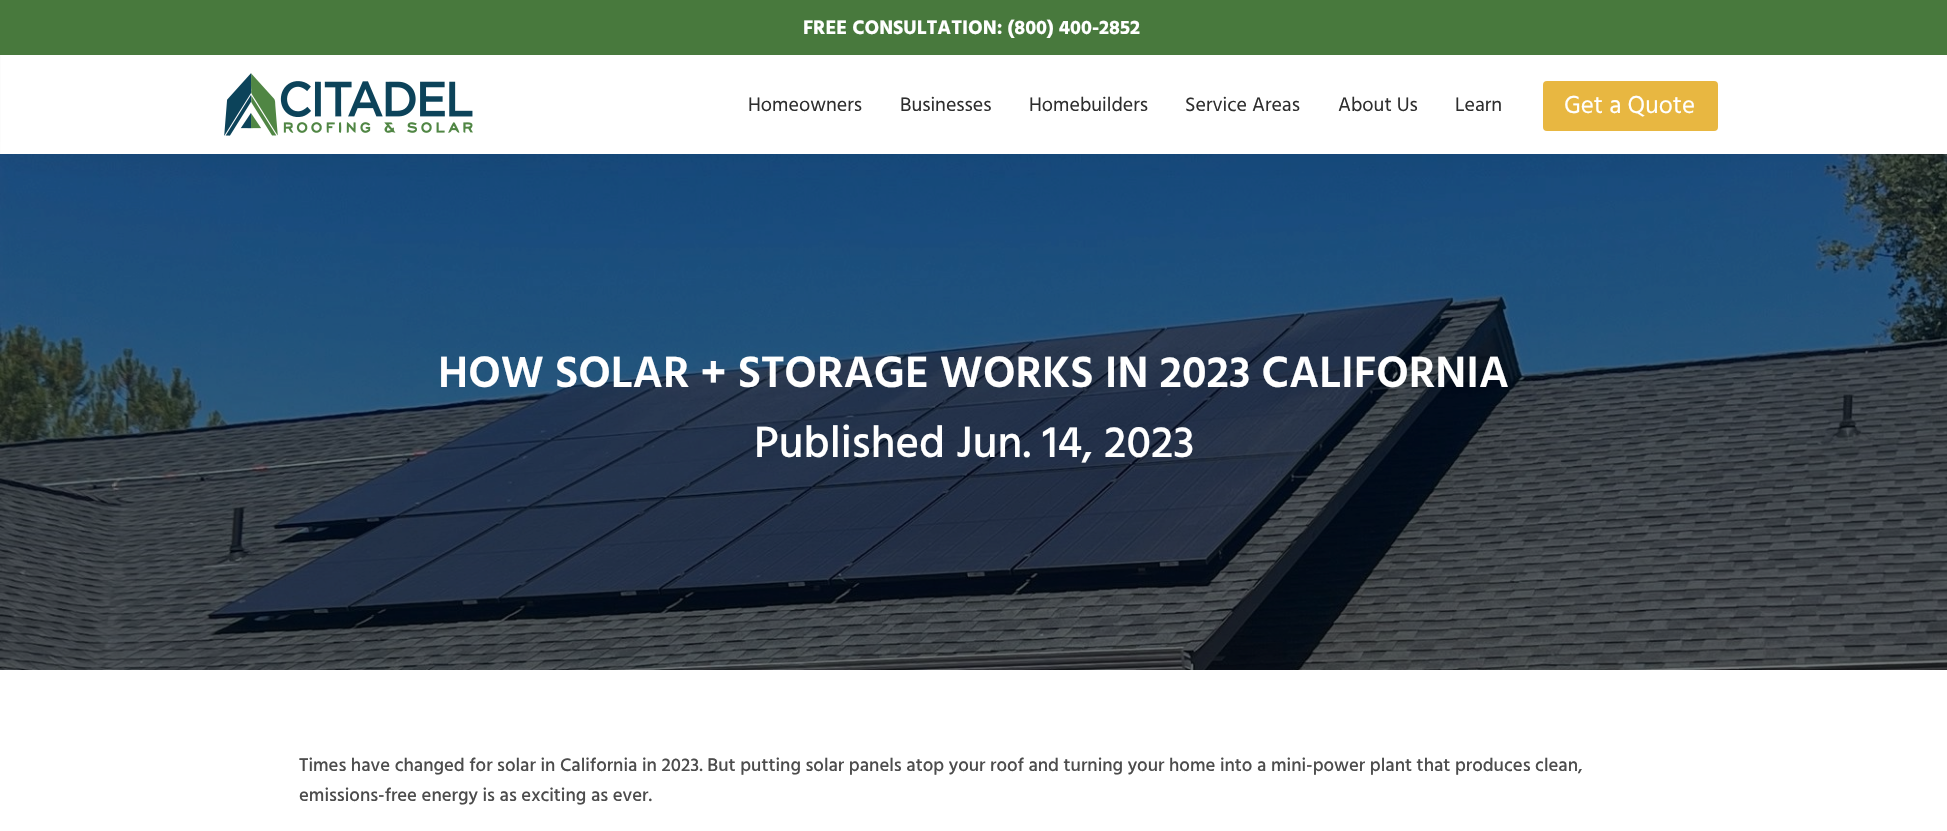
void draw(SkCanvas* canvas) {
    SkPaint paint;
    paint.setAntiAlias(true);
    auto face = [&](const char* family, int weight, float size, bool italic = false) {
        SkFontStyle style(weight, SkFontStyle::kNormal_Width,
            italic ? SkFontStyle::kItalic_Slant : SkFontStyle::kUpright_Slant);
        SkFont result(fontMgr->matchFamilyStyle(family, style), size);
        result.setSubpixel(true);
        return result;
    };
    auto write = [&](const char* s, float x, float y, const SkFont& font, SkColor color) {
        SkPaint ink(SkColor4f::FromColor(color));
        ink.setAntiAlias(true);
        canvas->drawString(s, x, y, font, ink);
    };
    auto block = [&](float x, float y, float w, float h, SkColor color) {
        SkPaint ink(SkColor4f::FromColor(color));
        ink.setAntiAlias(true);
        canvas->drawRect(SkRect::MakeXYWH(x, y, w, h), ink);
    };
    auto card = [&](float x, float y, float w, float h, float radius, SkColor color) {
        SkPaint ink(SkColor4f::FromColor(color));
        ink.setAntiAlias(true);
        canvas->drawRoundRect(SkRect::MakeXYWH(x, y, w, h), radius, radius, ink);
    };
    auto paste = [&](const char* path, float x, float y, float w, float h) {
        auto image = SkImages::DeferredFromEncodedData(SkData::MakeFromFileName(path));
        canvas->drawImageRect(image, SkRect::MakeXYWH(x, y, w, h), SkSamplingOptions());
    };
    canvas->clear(SK_ColorWHITE);
    paste("pic2.png", 0, 154, 1947, 516);
    paint.setColor(SkColorSetARGB(13, 0, 0, 0));
    paint.setMaskFilter(SkMaskFilter::MakeBlur(kNormal_SkBlurStyle, 15.5f));
    canvas->drawRect(SkRect::MakeXYWH(14, 1, 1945, 152), paint);
    paint.setMaskFilter(nullptr);
    block(1, 55, 1946, 99, SK_ColorWHITE);
    block(0, 0, 1947, 55, SkColorSetRGB(72, 121, 61));
    auto kFont1 = face("Hind", 700, 20);
    write("FREE CONSULTATION: (800) 400-2852", 803, 34, kFont1, SK_ColorWHITE);
    paste("pic1.png", 224, 73, 249, 63);
    auto kFont2 = face("Hind", 400, 20);
    write("Homeowners", 748, 111, kFont2, SkColorSetRGB(46, 46, 46));
    write("Businesses", 900, 111, kFont2, SkColorSetRGB(46, 46, 46));
    write("Homebuilders", 1029, 111, kFont2, SkColorSetRGB(46, 46, 46));
    write("Service Areas", 1185, 111, kFont2, SkColorSetRGB(46, 46, 46));
    write("About Us", 1338, 111, kFont2, SkColorSetRGB(46, 46, 46));
    write("Learn", 1455, 111, kFont2, SkColorSetRGB(46, 46, 46));
    card(1543, 81, 175, 50, 4, SkColorSetRGB(232, 183, 65));
    auto kFont3 = face("Hind", 400, 25);
    write("Get a Quote", 1564, 113, kFont3, SK_ColorWHITE);
    auto kFont4 = face("Hind", 600, 45);
    write("HOW SOLAR + STORAGE WORKS IN 2023 CALIFORNIA", 438, 387, kFont4, SK_ColorWHITE);
    auto kFont5 = face("Hind", 500, 45);
    write("Published Jun. 14, 2023", 754, 457, kFont5, SK_ColorWHITE);
    auto kFont6 = face("Hind", 500, 18.75f);
    write("Times have changed for solar in California in 2023. But putting solar panels atop your roof and turning your home into a mini-power plant that produces clean,", 299, 771, kFont6, SkColorSetRGB(76, 76, 76));
    write("emissions-free energy is as exciting as ever.", 299, 801, kFont6, SkColorSetRGB(76, 76, 76));
}
